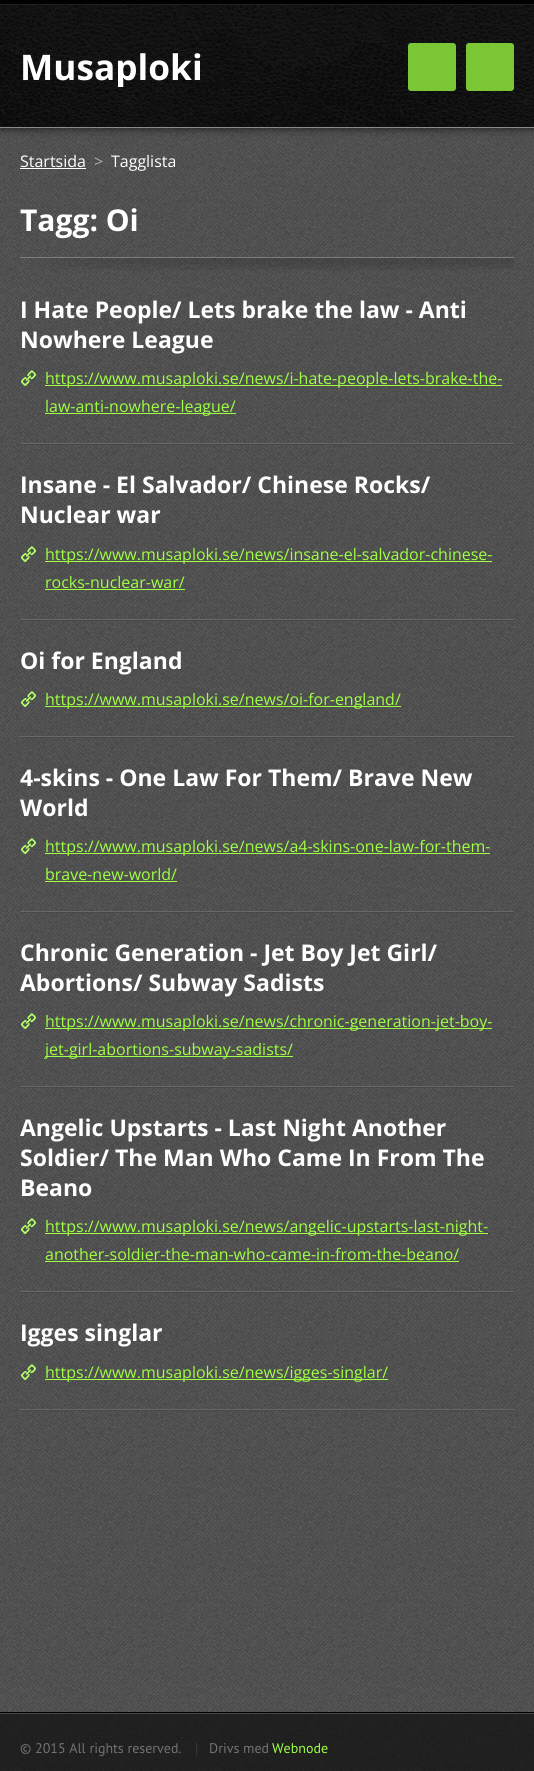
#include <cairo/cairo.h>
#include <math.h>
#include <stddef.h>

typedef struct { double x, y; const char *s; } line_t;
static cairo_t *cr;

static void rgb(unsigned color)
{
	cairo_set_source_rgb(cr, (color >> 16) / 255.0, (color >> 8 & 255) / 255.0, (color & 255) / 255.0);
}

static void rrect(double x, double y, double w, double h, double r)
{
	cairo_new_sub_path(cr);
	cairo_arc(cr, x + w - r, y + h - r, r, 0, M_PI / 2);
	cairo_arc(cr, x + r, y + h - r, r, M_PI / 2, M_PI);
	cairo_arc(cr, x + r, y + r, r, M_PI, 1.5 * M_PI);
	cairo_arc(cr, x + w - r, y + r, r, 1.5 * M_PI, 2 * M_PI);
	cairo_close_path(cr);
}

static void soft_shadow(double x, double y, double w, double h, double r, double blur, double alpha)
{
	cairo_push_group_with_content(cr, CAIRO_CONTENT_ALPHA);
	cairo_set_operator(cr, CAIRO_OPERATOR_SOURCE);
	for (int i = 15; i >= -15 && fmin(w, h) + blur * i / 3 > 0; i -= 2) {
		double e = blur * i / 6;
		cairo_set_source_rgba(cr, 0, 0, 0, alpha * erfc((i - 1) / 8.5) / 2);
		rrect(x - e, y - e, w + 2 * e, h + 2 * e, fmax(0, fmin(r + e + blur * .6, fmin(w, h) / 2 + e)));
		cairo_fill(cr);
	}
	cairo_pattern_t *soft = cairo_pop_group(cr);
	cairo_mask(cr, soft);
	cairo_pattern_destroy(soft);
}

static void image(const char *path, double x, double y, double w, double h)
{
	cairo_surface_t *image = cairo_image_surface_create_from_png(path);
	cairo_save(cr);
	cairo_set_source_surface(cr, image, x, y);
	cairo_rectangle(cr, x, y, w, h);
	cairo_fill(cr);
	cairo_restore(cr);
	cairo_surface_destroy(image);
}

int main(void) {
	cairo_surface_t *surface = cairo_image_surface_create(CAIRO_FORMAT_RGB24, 534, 1771);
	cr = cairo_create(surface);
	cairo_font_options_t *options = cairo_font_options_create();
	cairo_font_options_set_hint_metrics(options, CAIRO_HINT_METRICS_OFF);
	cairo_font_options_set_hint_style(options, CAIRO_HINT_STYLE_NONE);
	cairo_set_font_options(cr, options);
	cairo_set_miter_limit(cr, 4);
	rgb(0xffffff);
	cairo_paint(cr);
	image("img/1.png", 0, 128, 534, 1643);
	rgb(0x000000);
	cairo_rectangle(cr, 0, 0, 534, 4);
	cairo_fill(cr);
	rgb(0x303030);
	cairo_rectangle(cr, 0, 4, 534, 1);
	cairo_fill(cr);
	rgb(0x000000);
	soft_shadow(0, 5, 534, 123, 0, 5, 0.7);
	image("img/2.png", 0, 5, 534, 122);
	rgb(0x8a8a8a);
	cairo_rectangle(cr, 0, 127, 534, 1);
	cairo_fill(cr);
	rgb(0x7bc635);
	rrect(408, 43, 48, 48, 3);
	cairo_fill(cr);
	rrect(466, 43, 48, 48, 3);
	cairo_fill(cr);
	rgb(0xffffff);
	cairo_rectangle(cr, 20, 168, 66, 1);
	cairo_fill(cr);
	image("img/3.png", 20, 257, 494, 13);
	image("img/4.png", 20, 443, 494, 2);
	image("img/5.png", 21, 370, 15, 16);
	rgb(0x9eff44);
	cairo_rectangle(cr, 45, 385, 457, 1);
	cairo_fill(cr);
	cairo_rectangle(cr, 45, 413, 191, 1);
	cairo_fill(cr);
	image("img/4.png", 20, 619, 494, 2);
	image("img/6.png", 21, 546, 15, 16);
	cairo_rectangle(cr, 45, 561, 447, 1);
	cairo_fill(cr);
	cairo_rectangle(cr, 45, 589, 140, 1);
	cairo_fill(cr);
	image("img/4.png", 20, 736, 494, 2);
	image("img/7.png", 21, 691, 15, 16);
	cairo_rectangle(cr, 45, 706, 356, 1);
	cairo_fill(cr);
	image("img/4.png", 20, 911, 494, 2);
	image("img/8.png", 21, 838, 15, 16);
	cairo_rectangle(cr, 45, 853, 445, 1);
	cairo_fill(cr);
	cairo_rectangle(cr, 45, 881, 132, 1);
	cairo_fill(cr);
	image("img/4.png", 20, 1086, 494, 2);
	image("img/9.png", 21, 1013, 15, 16);
	cairo_rectangle(cr, 45, 1028, 447, 1);
	cairo_fill(cr);
	cairo_rectangle(cr, 45, 1056, 248, 1);
	cairo_fill(cr);
	image("img/4.png", 20, 1291, 494, 2);
	image("img/10.png", 21, 1218, 15, 16);
	cairo_rectangle(cr, 45, 1233, 443, 1);
	cairo_fill(cr);
	cairo_rectangle(cr, 45, 1261, 414, 1);
	cairo_fill(cr);
	image("img/4.png", 20, 1409, 494, 2);
	image("img/11.png", 21, 1364, 15, 16);
	cairo_rectangle(cr, 45, 1379, 343, 1);
	cairo_fill(cr);
	rgb(0x000000);
	cairo_rectangle(cr, 0, 1712, 534, 1);
	cairo_fill(cr);
	cairo_set_source_rgba(cr, 0, 0, 0, 0.6);
	cairo_rectangle(cr, 0, 1714, 534, 57);
	cairo_fill(cr);
	rgb(0x464646);
	cairo_rectangle(cr, 0, 1713, 534, 1);
	cairo_fill(cr);
	cairo_save(cr);
	cairo_rectangle(cr, 20, 45, 182, 42);
	cairo_clip(cr);
	cairo_select_font_face(cr, "Open Sans", CAIRO_FONT_SLANT_NORMAL, CAIRO_FONT_WEIGHT_BOLD);
	cairo_set_font_size(cr, 35.25);
	rgb(0xffffff);
	cairo_move_to(cr, 20, 80);
	cairo_show_text(cr, "Musaploki");
	cairo_restore(cr);
	cairo_select_font_face(cr, "Open Sans", CAIRO_FONT_SLANT_NORMAL, CAIRO_FONT_WEIGHT_NORMAL);
	cairo_set_font_size(cr, 16);
	rgb(0xffffff);
	cairo_move_to(cr, 20, 167);
	cairo_show_text(cr, "Startsida");
	rgb(0xb3b3b3);
	cairo_move_to(cr, 94, 167);
	cairo_show_text(cr, ">");
	rgb(0xffffff);
	cairo_move_to(cr, 111, 167);
	cairo_show_text(cr, "Tagglista");
	cairo_select_font_face(cr, "Open Sans", CAIRO_FONT_SLANT_NORMAL, CAIRO_FONT_WEIGHT_BOLD);
	cairo_set_font_size(cr, 30);
	cairo_move_to(cr, 20, 231);
	cairo_show_text(cr, "Tagg: Oi");
	cairo_set_font_size(cr, 23);
	cairo_move_to(cr, 20, 318);
	cairo_show_text(cr, "I Hate People/ Lets brake the law - Anti");
	cairo_move_to(cr, 20, 348);
	cairo_show_text(cr, "Nowhere League");
	cairo_select_font_face(cr, "Open Sans", CAIRO_FONT_SLANT_NORMAL, CAIRO_FONT_WEIGHT_NORMAL);
	cairo_set_font_size(cr, 16);
	rgb(0x9eff44);
	cairo_move_to(cr, 45, 384);
	cairo_show_text(cr, "https://www.musaploki.se/news/i-hate-people-lets-brake-the-");
	cairo_move_to(cr, 45, 412);
	cairo_show_text(cr, "law-anti-nowhere-league/");
	cairo_select_font_face(cr, "Open Sans", CAIRO_FONT_SLANT_NORMAL, CAIRO_FONT_WEIGHT_BOLD);
	cairo_set_font_size(cr, 23);
	rgb(0xffffff);
	cairo_move_to(cr, 20, 493);
	cairo_show_text(cr, "Insane - El Salvador/ Chinese Rocks/");
	cairo_move_to(cr, 20, 523);
	cairo_show_text(cr, "Nuclear war");
	cairo_select_font_face(cr, "Open Sans", CAIRO_FONT_SLANT_NORMAL, CAIRO_FONT_WEIGHT_NORMAL);
	cairo_set_font_size(cr, 16);
	rgb(0x9eff44);
	cairo_move_to(cr, 45, 560);
	cairo_show_text(cr, "https://www.musaploki.se/news/insane-el-salvador-chinese-");
	cairo_move_to(cr, 45, 588);
	cairo_show_text(cr, "rocks-nuclear-war/");
	cairo_select_font_face(cr, "Open Sans", CAIRO_FONT_SLANT_NORMAL, CAIRO_FONT_WEIGHT_BOLD);
	cairo_set_font_size(cr, 23);
	rgb(0xffffff);
	cairo_move_to(cr, 20, 669);
	cairo_show_text(cr, "Oi for England");
	cairo_select_font_face(cr, "Open Sans", CAIRO_FONT_SLANT_NORMAL, CAIRO_FONT_WEIGHT_NORMAL);
	cairo_set_font_size(cr, 16);
	rgb(0x9eff44);
	cairo_move_to(cr, 45, 705);
	cairo_show_text(cr, "https://www.musaploki.se/news/oi-for-england/");
	cairo_select_font_face(cr, "Open Sans", CAIRO_FONT_SLANT_NORMAL, CAIRO_FONT_WEIGHT_BOLD);
	cairo_set_font_size(cr, 23);
	rgb(0xffffff);
	cairo_move_to(cr, 20, 786);
	cairo_show_text(cr, "4-skins - One Law For Them/ Brave New");
	cairo_move_to(cr, 20, 816);
	cairo_show_text(cr, "World");
	cairo_select_font_face(cr, "Open Sans", CAIRO_FONT_SLANT_NORMAL, CAIRO_FONT_WEIGHT_NORMAL);
	cairo_set_font_size(cr, 16);
	rgb(0x9eff44);
	cairo_move_to(cr, 45, 852);
	cairo_show_text(cr, "https://www.musaploki.se/news/a4-skins-one-law-for-them-");
	cairo_move_to(cr, 45, 880);
	cairo_show_text(cr, "brave-new-world/");
	cairo_select_font_face(cr, "Open Sans", CAIRO_FONT_SLANT_NORMAL, CAIRO_FONT_WEIGHT_BOLD);
	cairo_set_font_size(cr, 23);
	rgb(0xffffff);
	cairo_move_to(cr, 20, 961);
	cairo_show_text(cr, "Chronic Generation - Jet Boy Jet Girl/");
	cairo_move_to(cr, 20, 991);
	cairo_show_text(cr, "Abortions/ Subway Sadists");
	cairo_select_font_face(cr, "Open Sans", CAIRO_FONT_SLANT_NORMAL, CAIRO_FONT_WEIGHT_NORMAL);
	cairo_set_font_size(cr, 16);
	rgb(0x9eff44);
	cairo_move_to(cr, 45, 1027);
	cairo_show_text(cr, "https://www.musaploki.se/news/chronic-generation-jet-boy-");
	cairo_move_to(cr, 45, 1055);
	cairo_show_text(cr, "jet-girl-abortions-subway-sadists/");
	cairo_select_font_face(cr, "Open Sans", CAIRO_FONT_SLANT_NORMAL, CAIRO_FONT_WEIGHT_BOLD);
	cairo_set_font_size(cr, 23);
	rgb(0xffffff);
	{
		static const line_t items[] = {
			{20, 1136, "Angelic Upstarts - Last Night Another"},
			{20, 1166, "Soldier/ The Man Who Came In From The"},
			{20, 1196, "Beano"},
		};
		for (size_t i = 0; i < sizeof items / sizeof *items; i++) {
			cairo_move_to(cr, items[i].x, items[i].y);
			cairo_show_text(cr, items[i].s);
		}
	}
	cairo_select_font_face(cr, "Open Sans", CAIRO_FONT_SLANT_NORMAL, CAIRO_FONT_WEIGHT_NORMAL);
	cairo_set_font_size(cr, 16);
	rgb(0x9eff44);
	cairo_move_to(cr, 45, 1232);
	cairo_show_text(cr, "https://www.musaploki.se/news/angelic-upstarts-last-night-");
	cairo_move_to(cr, 45, 1260);
	cairo_show_text(cr, "another-soldier-the-man-who-came-in-from-the-beano/");
	cairo_select_font_face(cr, "Open Sans", CAIRO_FONT_SLANT_NORMAL, CAIRO_FONT_WEIGHT_BOLD);
	cairo_set_font_size(cr, 23);
	rgb(0xffffff);
	cairo_move_to(cr, 20, 1341);
	cairo_show_text(cr, "Igges singlar");
	cairo_select_font_face(cr, "Open Sans", CAIRO_FONT_SLANT_NORMAL, CAIRO_FONT_WEIGHT_NORMAL);
	cairo_set_font_size(cr, 16);
	rgb(0x9eff44);
	cairo_move_to(cr, 45, 1378);
	cairo_show_text(cr, "https://www.musaploki.se/news/igges-singlar/");
	cairo_select_font_face(cr, "PT Sans", CAIRO_FONT_SLANT_NORMAL, CAIRO_FONT_WEIGHT_NORMAL);
	cairo_set_font_size(cr, 14);
	rgb(0x727272);
	cairo_move_to(cr, 20, 1753);
	cairo_show_text(cr, "© 2015 All rights reserved.");
	rgb(0x3c3c3c);
	cairo_move_to(cr, 195, 1753);
	cairo_show_text(cr, "|");
	rgb(0x727272);
	cairo_move_to(cr, 209, 1753);
	cairo_show_text(cr, "Drivs med");
	rgb(0x9eff44);
	cairo_move_to(cr, 272, 1753);
	cairo_show_text(cr, "Webnode");
	cairo_surface_write_to_png(surface, "page.png");
	cairo_font_options_destroy(options);
	cairo_destroy(cr);
	cairo_surface_destroy(surface);
	return 0;
}
